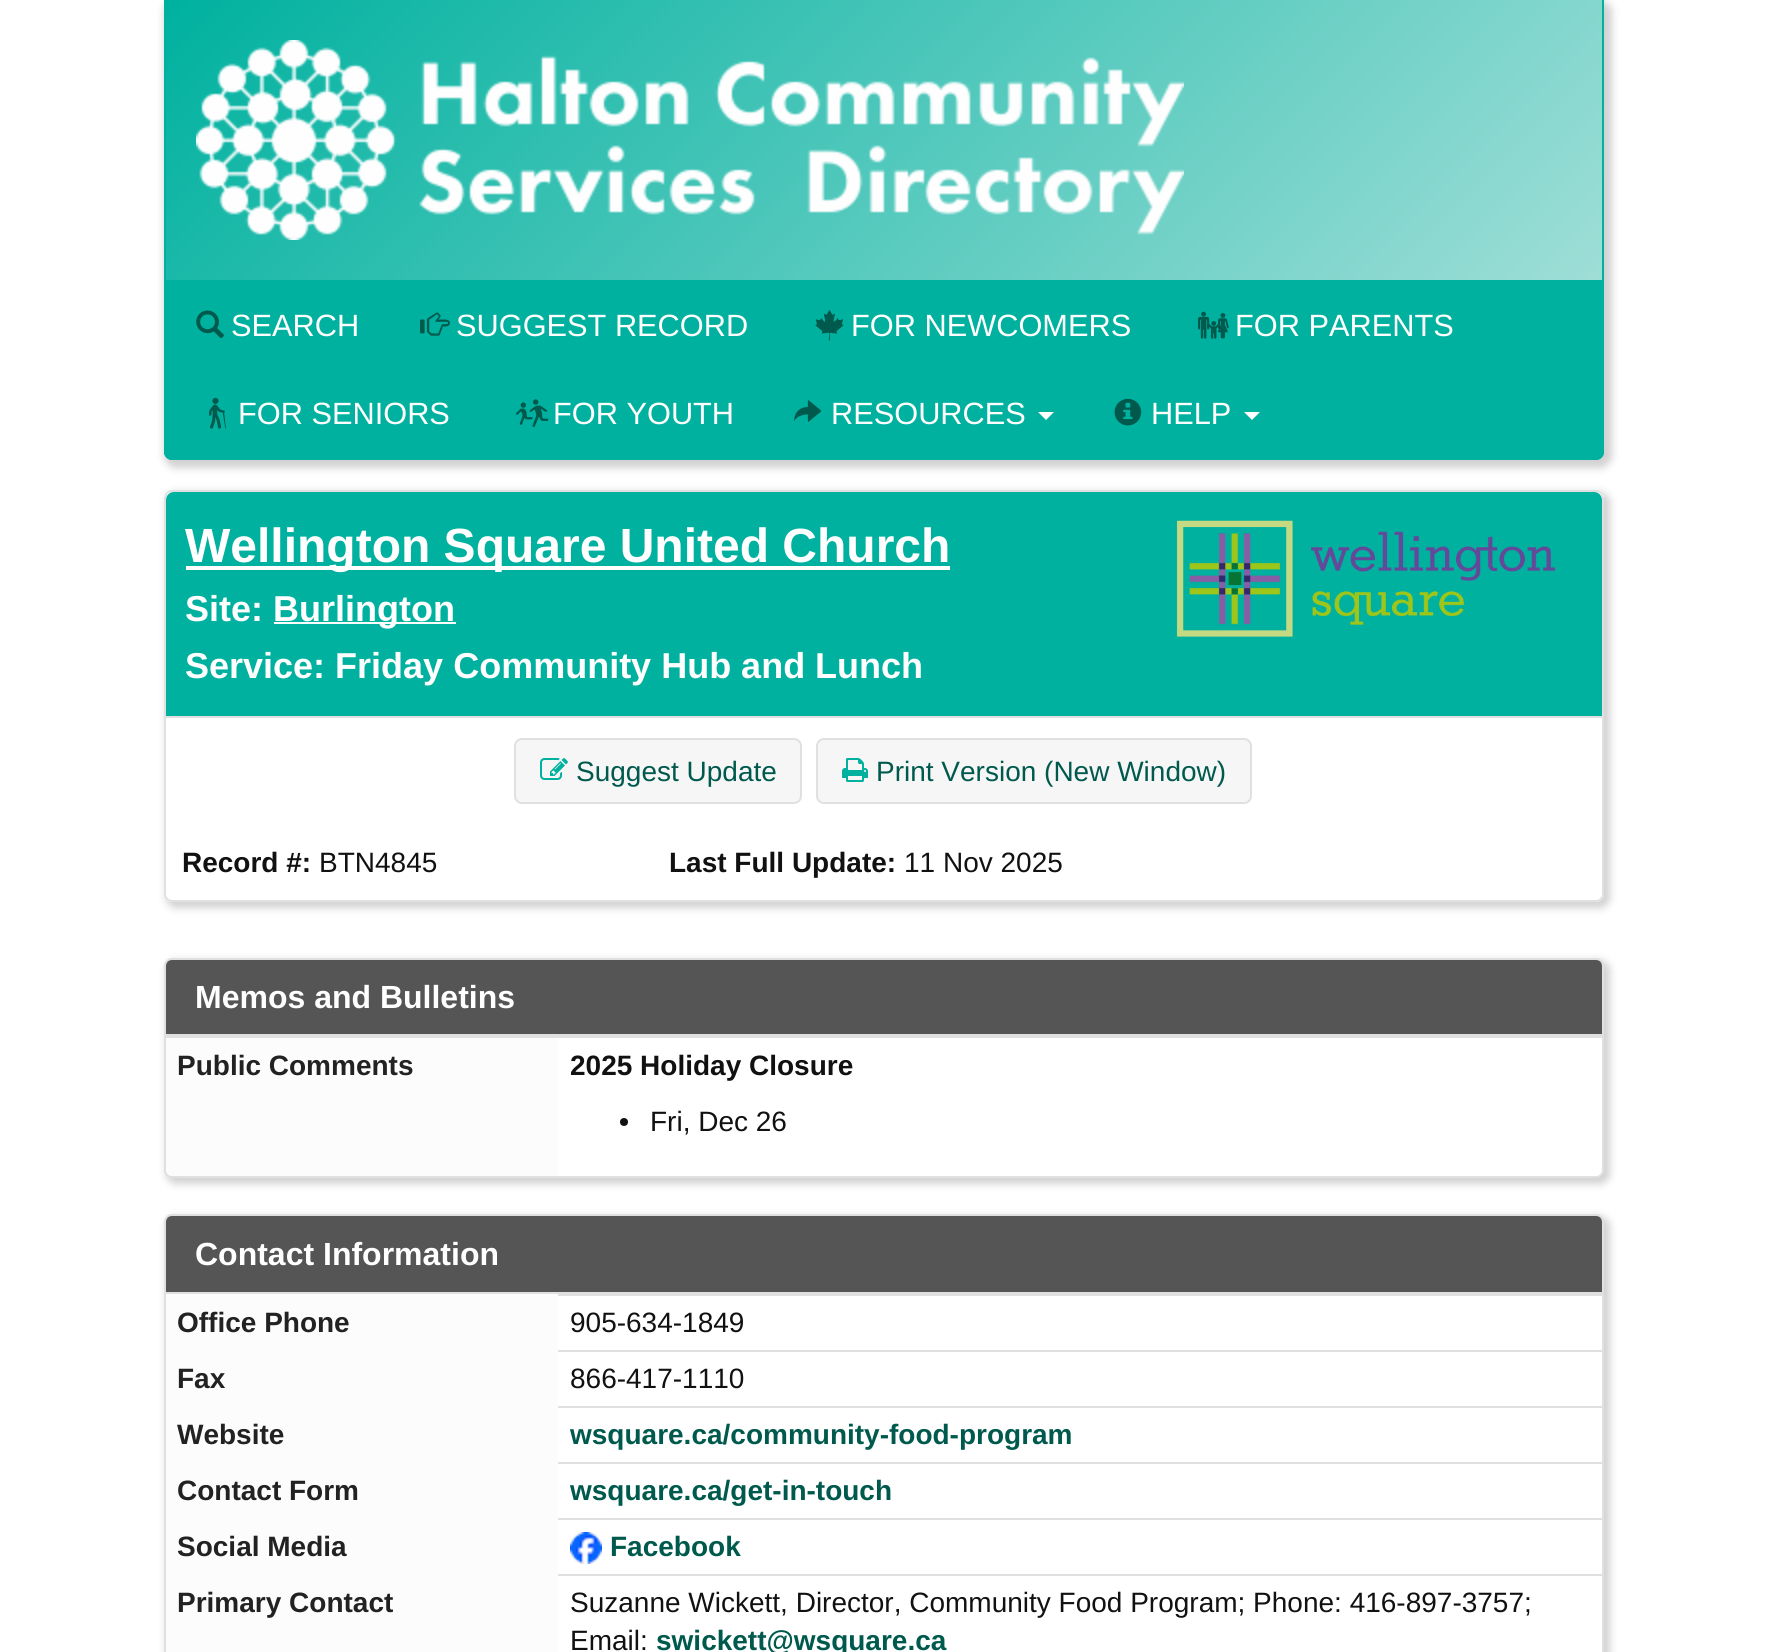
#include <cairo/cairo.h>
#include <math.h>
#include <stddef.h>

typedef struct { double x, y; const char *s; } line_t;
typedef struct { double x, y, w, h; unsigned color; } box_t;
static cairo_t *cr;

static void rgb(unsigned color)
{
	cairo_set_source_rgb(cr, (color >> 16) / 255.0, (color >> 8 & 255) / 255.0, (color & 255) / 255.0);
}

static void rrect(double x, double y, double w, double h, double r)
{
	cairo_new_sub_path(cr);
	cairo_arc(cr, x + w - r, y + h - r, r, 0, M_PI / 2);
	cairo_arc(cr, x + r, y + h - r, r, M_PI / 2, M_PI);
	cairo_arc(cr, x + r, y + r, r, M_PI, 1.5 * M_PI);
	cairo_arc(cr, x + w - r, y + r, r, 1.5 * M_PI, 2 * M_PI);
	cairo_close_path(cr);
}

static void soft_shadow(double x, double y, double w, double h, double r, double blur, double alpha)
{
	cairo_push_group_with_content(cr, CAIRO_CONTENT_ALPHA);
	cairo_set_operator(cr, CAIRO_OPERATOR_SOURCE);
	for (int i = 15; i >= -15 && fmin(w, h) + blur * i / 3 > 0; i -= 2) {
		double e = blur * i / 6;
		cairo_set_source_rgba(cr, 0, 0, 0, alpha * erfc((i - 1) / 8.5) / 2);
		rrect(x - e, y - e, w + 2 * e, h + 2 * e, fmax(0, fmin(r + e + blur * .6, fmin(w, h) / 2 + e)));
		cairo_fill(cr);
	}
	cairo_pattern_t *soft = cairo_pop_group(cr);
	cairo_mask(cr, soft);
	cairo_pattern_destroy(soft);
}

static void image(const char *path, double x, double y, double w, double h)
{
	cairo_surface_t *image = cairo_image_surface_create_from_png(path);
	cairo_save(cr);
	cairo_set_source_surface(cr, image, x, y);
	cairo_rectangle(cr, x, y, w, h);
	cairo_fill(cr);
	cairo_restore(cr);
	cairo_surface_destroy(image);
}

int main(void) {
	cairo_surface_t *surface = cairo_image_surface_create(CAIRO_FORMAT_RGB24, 1766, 1652);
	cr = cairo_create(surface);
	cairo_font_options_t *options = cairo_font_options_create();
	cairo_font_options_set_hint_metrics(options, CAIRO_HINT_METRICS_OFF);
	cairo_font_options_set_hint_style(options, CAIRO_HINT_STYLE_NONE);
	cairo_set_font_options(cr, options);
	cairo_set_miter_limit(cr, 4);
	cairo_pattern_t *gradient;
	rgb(0xffffff);
	cairo_paint(cr);
	rgb(0x666666);
	soft_shadow(164, 0, 1448, 468, 12, 4, 0.3);
	rgb(0x00b19f);
	cairo_new_path(cr);
	cairo_move_to(cr, 164, 0);
	cairo_line_to(cr, 1604, 0);
	cairo_line_to(cr, 1604, 452);
	cairo_curve_to(cr, 1604, 456.5, 1600.5, 460, 1596, 460);
	cairo_line_to(cr, 172, 460);
	cairo_curve_to(cr, 167.5, 460, 164, 456.5, 164, 452);
	cairo_close_path(cr);
	cairo_fill(cr);
	cairo_set_fill_rule(cr, CAIRO_FILL_RULE_EVEN_ODD);
	cairo_new_path(cr);
	cairo_move_to(cr, 164, 0);
	cairo_line_to(cr, 1604, 0);
	cairo_line_to(cr, 1604, 452);
	cairo_curve_to(cr, 1604, 456, 1600, 460, 1596, 460);
	cairo_line_to(cr, 172, 460);
	cairo_curve_to(cr, 168, 460, 164, 456, 164, 452);
	cairo_close_path(cr);
	cairo_move_to(cr, 166, 0);
	cairo_line_to(cr, 1602, 0);
	cairo_line_to(cr, 1602, 452);
	cairo_curve_to(cr, 1602, 455, 1599, 458, 1596, 458);
	cairo_line_to(cr, 172, 458);
	cairo_curve_to(cr, 169, 458, 166, 455, 166, 452);
	cairo_close_path(cr);
	cairo_fill(cr);
	gradient = cairo_pattern_create_linear(455, -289, 1313, 569);
	cairo_pattern_add_color_stop_rgba(gradient, 0, 0, 0.694, 0.624, 1);
	cairo_pattern_add_color_stop_rgba(gradient, 1, 0.62, 0.871, 0.843, 1);
	cairo_set_source(cr, gradient);
	cairo_pattern_destroy(gradient);
	cairo_rectangle(cr, 166, 0, 1436, 280);
	cairo_fill(cr);
	image("img/1.png", 196, 40, 988, 200);
	image("img/2.png", 196, 310, 28, 29);
	image("img/3.png", 420, 312, 30, 24);
	image("img/4.png", 815, 310, 29, 31);
	image("img/5.png", 1198, 311, 31, 28);
	image("img/6.png", 209, 397, 17, 32);
	image("img/7.png", 516, 399, 33, 28);
	image("img/8.png", 794, 400, 28, 22);
	rgb(0xffffff);
	cairo_set_fill_rule(cr, CAIRO_FILL_RULE_WINDING);
	cairo_new_path(cr);
	cairo_move_to(cr, 1038, 412);
	cairo_line_to(cr, 1054, 412);
	cairo_line_to(cr, 1046, 420);
	cairo_close_path(cr);
	cairo_fill(cr);
	image("img/9.png", 1114, 398, 28, 28);
	cairo_new_path(cr);
	cairo_move_to(cr, 1244, 412);
	cairo_line_to(cr, 1260, 412);
	cairo_line_to(cr, 1252, 420);
	cairo_close_path(cr);
	cairo_fill(cr);
	cairo_save(cr);
	cairo_set_fill_rule(cr, CAIRO_FILL_RULE_EVEN_ODD);
	cairo_new_path(cr);
	cairo_move_to(cr, 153, 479);
	cairo_line_to(cr, 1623, 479);
	cairo_line_to(cr, 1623, 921);
	cairo_line_to(cr, 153, 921);
	cairo_close_path(cr);
	cairo_move_to(cr, 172, 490);
	cairo_line_to(cr, 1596, 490);
	cairo_curve_to(cr, 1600.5, 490, 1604, 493.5, 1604, 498);
	cairo_line_to(cr, 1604, 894);
	cairo_curve_to(cr, 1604, 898.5, 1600.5, 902, 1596, 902);
	cairo_line_to(cr, 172, 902);
	cairo_curve_to(cr, 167.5, 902, 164, 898.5, 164, 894);
	cairo_line_to(cr, 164, 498);
	cairo_curve_to(cr, 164, 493.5, 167.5, 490, 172, 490);
	cairo_close_path(cr);
	cairo_clip(cr);
	rgb(0x666666);
	soft_shadow(166, 492, 1444, 416, 10, 4, 0.3);
	cairo_restore(cr);
	rrect(165, 491, 1438, 410, 7);
	rgb(0xe0e0e0);
	cairo_stroke(cr);
	rgb(0x00b19f);
	cairo_new_path(cr);
	cairo_move_to(cr, 174, 492);
	cairo_line_to(cr, 1594, 492);
	cairo_curve_to(cr, 1598.5, 492, 1602, 495.5, 1602, 500);
	cairo_line_to(cr, 1602, 718);
	cairo_line_to(cr, 166, 718);
	cairo_line_to(cr, 166, 500);
	cairo_curve_to(cr, 166, 495.5, 169.5, 492, 174, 492);
	cairo_close_path(cr);
	cairo_fill(cr);
	{
		static const box_t items[] = {
			{166, 716, 1436, 2, 0xe0e0e0},
			{186, 566, 764, 4, 0xffffff},
			{274, 622, 182, 2, 0xffffff},
		};
		for (size_t i = 0; i < sizeof items / sizeof *items; i++) {
			rgb(items[i].color);
			cairo_rectangle(cr, items[i].x, items[i].y, items[i].w, items[i].h);
			cairo_fill(cr);
		}
	}
	image("img/10.png", 1176, 520, 379, 117);
	rgb(0xf6f6f6);
	rrect(515, 739, 286, 64, 7);
	cairo_fill_preserve(cr);
	rgb(0xe0e0e0);
	cairo_stroke(cr);
	image("img/11.png", 540, 758, 28, 22);
	rgb(0xf6f6f6);
	rrect(817, 739, 434, 64, 7);
	cairo_fill_preserve(cr);
	rgb(0xe0e0e0);
	cairo_stroke(cr);
	image("img/12.png", 842, 758, 26, 24);
	rgb(0x666666);
	soft_shadow(166, 960, 1444, 224, 10, 4, 0.3);
	rgb(0xffffff);
	rrect(165, 959, 1438, 218, 7);
	cairo_fill_preserve(cr);
	rgb(0xe0e0e0);
	cairo_stroke(cr);
	rgb(0x555555);
	cairo_new_path(cr);
	cairo_move_to(cr, 172, 960);
	cairo_line_to(cr, 1596, 960);
	cairo_curve_to(cr, 1599.5, 960, 1602, 962.5, 1602, 966);
	cairo_line_to(cr, 1602, 1036);
	cairo_line_to(cr, 166, 1036);
	cairo_line_to(cr, 166, 966);
	cairo_curve_to(cr, 166, 962.5, 168.5, 960, 172, 960);
	cairo_close_path(cr);
	cairo_fill(cr);
	rgb(0xe0e0e0);
	cairo_rectangle(cr, 166, 1034, 1436, 4);
	cairo_fill(cr);
	cairo_rectangle(cr, 556, 1036, 2, 142);
	cairo_fill(cr);
	rgb(0xfcfcfc);
	cairo_new_path(cr);
	cairo_move_to(cr, 166, 1038);
	cairo_line_to(cr, 558, 1038);
	cairo_line_to(cr, 558, 1176);
	cairo_line_to(cr, 174, 1176);
	cairo_curve_to(cr, 169.5, 1176, 166, 1172.5, 166, 1168);
	cairo_close_path(cr);
	cairo_fill(cr);
	rgb(0x111111);
	cairo_arc(cr, 624, 1122, 4, 0, 2 * M_PI);
	cairo_fill(cr);
	rgb(0x666666);
	soft_shadow(166, 1216, 1444, 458, 10, 4, 0.3);
	rgb(0xffffff);
	rrect(165, 1215, 1438, 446, 7);
	cairo_fill_preserve(cr);
	rgb(0xe0e0e0);
	cairo_stroke(cr);
	rgb(0x555555);
	cairo_new_path(cr);
	cairo_move_to(cr, 172, 1216);
	cairo_line_to(cr, 1596, 1216);
	cairo_curve_to(cr, 1599.5, 1216, 1602, 1218.5, 1602, 1222);
	cairo_line_to(cr, 1602, 1294);
	cairo_line_to(cr, 166, 1294);
	cairo_line_to(cr, 166, 1222);
	cairo_curve_to(cr, 166, 1218.5, 168.5, 1216, 172, 1216);
	cairo_close_path(cr);
	cairo_fill(cr);
	{
		static const box_t items[] = {
			{166, 1292, 1436, 2, 0xe0e0e0},
			{558, 1294, 1044, 2, 0xe0e0e0},
			{556, 1350, 1046, 2, 0xe0e0e0},
			{556, 1406, 1046, 2, 0xe0e0e0},
			{556, 1462, 1046, 2, 0xe0e0e0},
			{556, 1518, 1046, 2, 0xe0e0e0},
			{556, 1574, 1046, 2, 0xe0e0e0},
			{166, 1294, 392, 358, 0xfcfcfc},
		};
		for (size_t i = 0; i < sizeof items / sizeof *items; i++) {
			rgb(items[i].color);
			cairo_rectangle(cr, items[i].x, items[i].y, items[i].w, items[i].h);
			cairo_fill(cr);
		}
	}
	image("img/13.png", 570, 1532, 32, 32);
	cairo_select_font_face(cr, "Liberation Sans", CAIRO_FONT_SLANT_NORMAL, CAIRO_FONT_WEIGHT_NORMAL);
	cairo_set_font_size(cr, 30.75);
	rgb(0xffffff);
	{
		static const line_t items[] = {
			{231, 336, "SEARCH"},
			{456, 336, "SUGGEST RECORD"},
			{851, 336, "FOR NEWCOMERS"},
			{1235, 336, "FOR PARENTS"},
			{238, 424, "FOR SENIORS"},
			{553, 424, "FOR YOUTH"},
			{831, 424, "RESOURCES"},
			{1151, 424, "HELP"},
		};
		for (size_t i = 0; i < sizeof items / sizeof *items; i++) {
			cairo_move_to(cr, items[i].x, items[i].y);
			cairo_show_text(cr, items[i].s);
		}
	}
	cairo_select_font_face(cr, "Liberation Sans", CAIRO_FONT_SLANT_NORMAL, CAIRO_FONT_WEIGHT_BOLD);
	cairo_set_font_size(cr, 48);
	cairo_move_to(cr, 185, 562);
	cairo_show_text(cr, "Wellington Square United Church");
	cairo_set_font_size(cr, 36);
	{
		static const line_t items[] = {
			{185, 621, "Site:"},
			{273, 621, "Burlington"},
			{185, 678, "Service: Friday Community Hub and Lunch"},
		};
		for (size_t i = 0; i < sizeof items / sizeof *items; i++) {
			cairo_move_to(cr, items[i].x, items[i].y);
			cairo_show_text(cr, items[i].s);
		}
	}
	cairo_select_font_face(cr, "Liberation Sans", CAIRO_FONT_SLANT_NORMAL, CAIRO_FONT_WEIGHT_NORMAL);
	cairo_set_font_size(cr, 28);
	rgb(0x00594d);
	cairo_move_to(cr, 576, 781);
	cairo_show_text(cr, "Suggest Update");
	cairo_move_to(cr, 876, 781);
	cairo_show_text(cr, "Print Version (New Window)");
	cairo_select_font_face(cr, "Liberation Sans", CAIRO_FONT_SLANT_NORMAL, CAIRO_FONT_WEIGHT_BOLD);
	rgb(0x111111);
	cairo_move_to(cr, 182, 872);
	cairo_show_text(cr, "Record #:");
	cairo_select_font_face(cr, "Liberation Sans", CAIRO_FONT_SLANT_NORMAL, CAIRO_FONT_WEIGHT_NORMAL);
	cairo_move_to(cr, 319, 872);
	cairo_show_text(cr, "BTN4845");
	cairo_select_font_face(cr, "Liberation Sans", CAIRO_FONT_SLANT_NORMAL, CAIRO_FONT_WEIGHT_BOLD);
	cairo_move_to(cr, 669, 872);
	cairo_show_text(cr, "Last Full Update:");
	cairo_select_font_face(cr, "Liberation Sans", CAIRO_FONT_SLANT_NORMAL, CAIRO_FONT_WEIGHT_NORMAL);
	cairo_move_to(cr, 904, 872);
	cairo_show_text(cr, "11 Nov 2025");
	cairo_select_font_face(cr, "Liberation Sans", CAIRO_FONT_SLANT_NORMAL, CAIRO_FONT_WEIGHT_BOLD);
	cairo_set_font_size(cr, 32);
	rgb(0xffffff);
	cairo_move_to(cr, 195, 1008);
	cairo_show_text(cr, "Memos and Bulletins");
	cairo_set_font_size(cr, 28);
	rgb(0x222222);
	cairo_move_to(cr, 177, 1075);
	cairo_show_text(cr, "Public Comments");
	rgb(0x111111);
	cairo_move_to(cr, 570, 1075);
	cairo_show_text(cr, "2025 Holiday Closure");
	cairo_select_font_face(cr, "Liberation Sans", CAIRO_FONT_SLANT_NORMAL, CAIRO_FONT_WEIGHT_NORMAL);
	cairo_move_to(cr, 650, 1131);
	cairo_show_text(cr, "Fri, Dec 26");
	cairo_select_font_face(cr, "Liberation Sans", CAIRO_FONT_SLANT_NORMAL, CAIRO_FONT_WEIGHT_BOLD);
	cairo_set_font_size(cr, 32);
	rgb(0xffffff);
	cairo_move_to(cr, 195, 1265);
	cairo_show_text(cr, "Contact Information");
	cairo_set_font_size(cr, 28);
	rgb(0x222222);
	cairo_move_to(cr, 177, 1332);
	cairo_show_text(cr, "Office Phone");
	cairo_select_font_face(cr, "Liberation Sans", CAIRO_FONT_SLANT_NORMAL, CAIRO_FONT_WEIGHT_NORMAL);
	rgb(0x111111);
	cairo_move_to(cr, 570, 1332);
	cairo_show_text(cr, "905-634-1849");
	cairo_select_font_face(cr, "Liberation Sans", CAIRO_FONT_SLANT_NORMAL, CAIRO_FONT_WEIGHT_BOLD);
	rgb(0x222222);
	cairo_move_to(cr, 177, 1388);
	cairo_show_text(cr, "Fax");
	cairo_select_font_face(cr, "Liberation Sans", CAIRO_FONT_SLANT_NORMAL, CAIRO_FONT_WEIGHT_NORMAL);
	rgb(0x111111);
	cairo_move_to(cr, 570, 1388);
	cairo_show_text(cr, "866-417-1110");
	cairo_select_font_face(cr, "Liberation Sans", CAIRO_FONT_SLANT_NORMAL, CAIRO_FONT_WEIGHT_BOLD);
	rgb(0x222222);
	cairo_move_to(cr, 177, 1444);
	cairo_show_text(cr, "Website");
	rgb(0x00594d);
	cairo_move_to(cr, 570, 1444);
	cairo_show_text(cr, "wsquare.ca/community-food-program");
	rgb(0x222222);
	cairo_move_to(cr, 177, 1500);
	cairo_show_text(cr, "Contact Form");
	rgb(0x00594d);
	cairo_move_to(cr, 570, 1500);
	cairo_show_text(cr, "wsquare.ca/get-in-touch");
	rgb(0x222222);
	cairo_move_to(cr, 177, 1556);
	cairo_show_text(cr, "Social Media");
	rgb(0x00594d);
	cairo_move_to(cr, 610, 1556);
	cairo_show_text(cr, "Facebook");
	rgb(0x222222);
	cairo_move_to(cr, 177, 1612);
	cairo_show_text(cr, "Primary Contact");
	cairo_select_font_face(cr, "Liberation Sans", CAIRO_FONT_SLANT_NORMAL, CAIRO_FONT_WEIGHT_NORMAL);
	rgb(0x111111);
	cairo_move_to(cr, 570, 1612);
	cairo_show_text(cr, "Suzanne Wickett, Director, Community Food Program; Phone: 416-897-3757;");
	cairo_move_to(cr, 570, 1650);
	cairo_show_text(cr, "Email:");
	cairo_select_font_face(cr, "Liberation Sans", CAIRO_FONT_SLANT_NORMAL, CAIRO_FONT_WEIGHT_BOLD);
	rgb(0x00594d);
	cairo_move_to(cr, 656, 1650);
	cairo_show_text(cr, "swickett@wsquare.ca");
	cairo_surface_write_to_png(surface, "page.png");
	cairo_font_options_destroy(options);
	cairo_destroy(cr);
	cairo_surface_destroy(surface);
	return 0;
}
